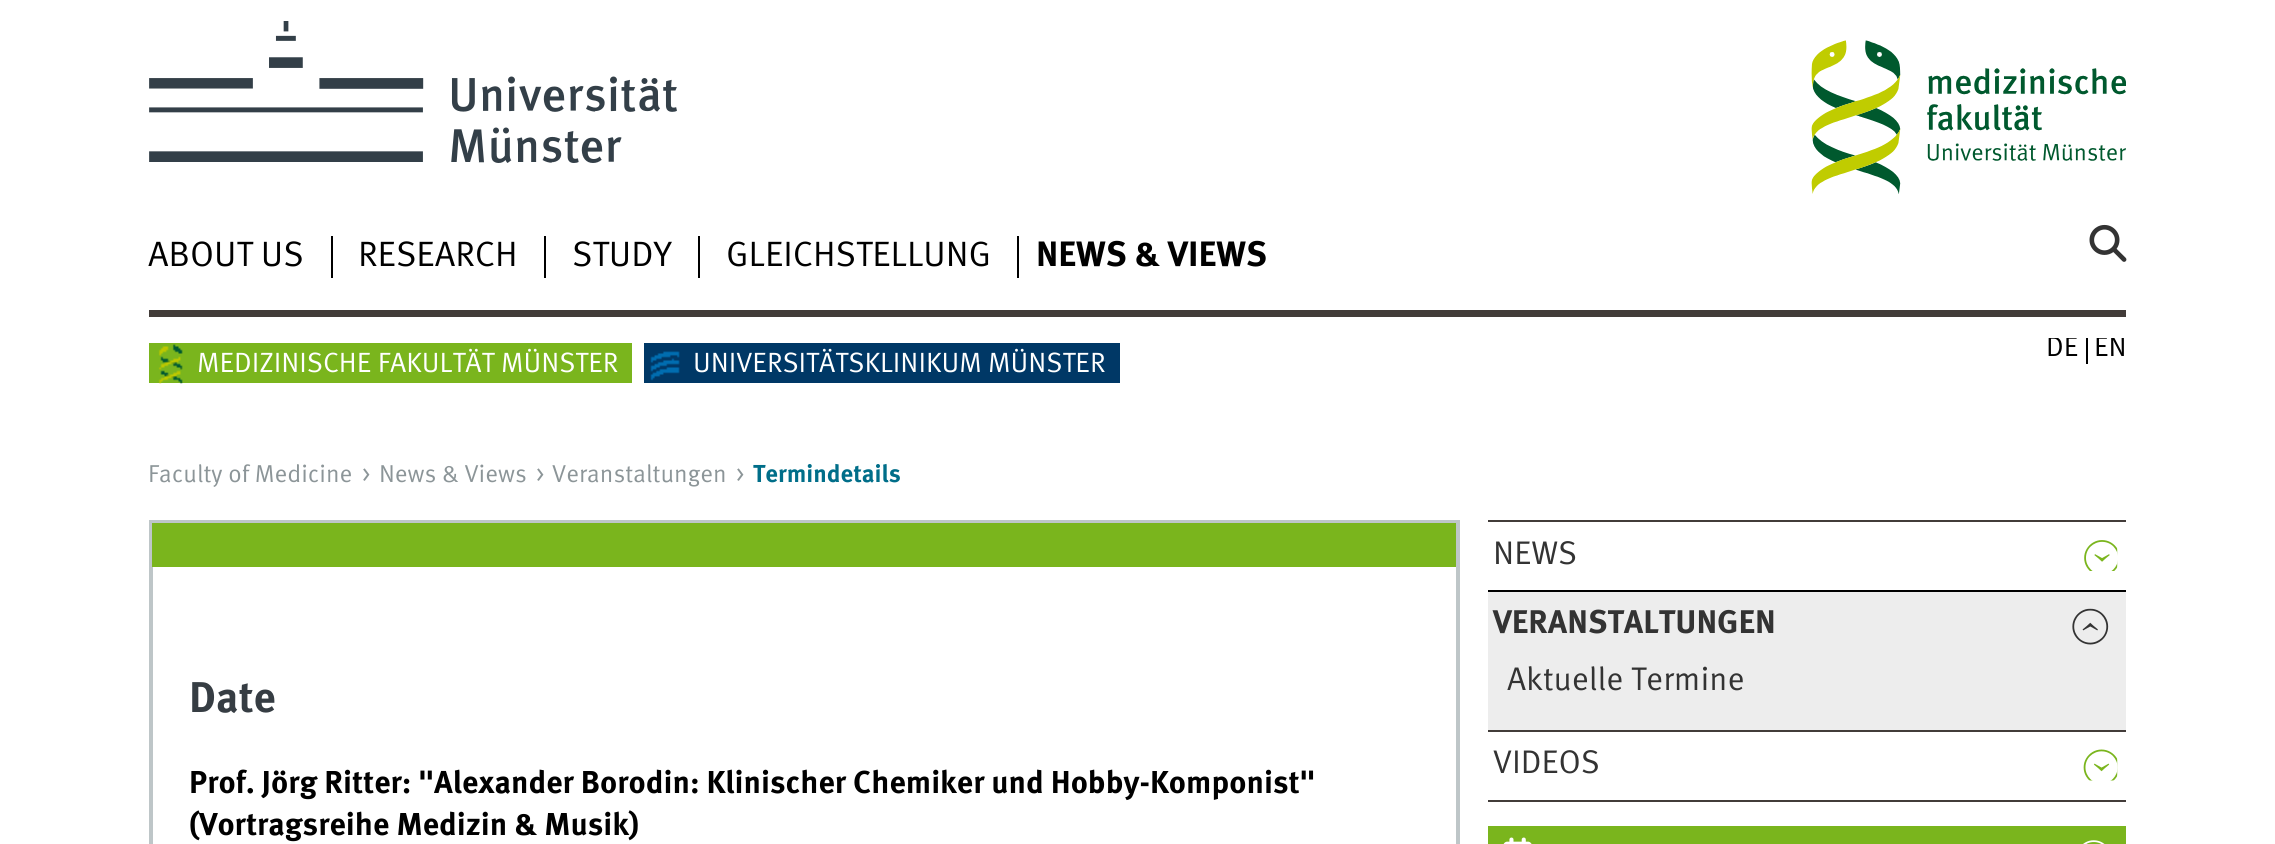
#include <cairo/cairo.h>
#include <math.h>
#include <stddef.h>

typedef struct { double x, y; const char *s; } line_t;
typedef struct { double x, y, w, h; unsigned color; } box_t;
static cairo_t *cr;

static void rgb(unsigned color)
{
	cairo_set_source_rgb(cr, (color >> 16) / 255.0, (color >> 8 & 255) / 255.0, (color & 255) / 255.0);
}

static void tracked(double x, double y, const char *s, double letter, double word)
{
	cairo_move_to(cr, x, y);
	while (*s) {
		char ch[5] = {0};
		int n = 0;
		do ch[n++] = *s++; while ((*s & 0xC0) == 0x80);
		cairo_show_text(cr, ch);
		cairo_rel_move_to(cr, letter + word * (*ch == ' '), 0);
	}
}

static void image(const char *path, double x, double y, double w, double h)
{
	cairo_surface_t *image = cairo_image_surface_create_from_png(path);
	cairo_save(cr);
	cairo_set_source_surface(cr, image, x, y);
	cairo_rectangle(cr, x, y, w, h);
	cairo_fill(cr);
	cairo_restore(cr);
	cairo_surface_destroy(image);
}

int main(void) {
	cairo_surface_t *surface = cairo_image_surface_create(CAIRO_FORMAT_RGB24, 2275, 844);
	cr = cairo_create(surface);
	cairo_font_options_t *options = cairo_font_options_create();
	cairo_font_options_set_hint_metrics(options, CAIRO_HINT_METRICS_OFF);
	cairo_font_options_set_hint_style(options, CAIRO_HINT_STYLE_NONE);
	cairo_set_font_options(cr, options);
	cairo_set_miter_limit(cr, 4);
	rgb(0xffffff);
	cairo_paint(cr);
	image("img/1.png", 149, 21, 528, 142);
	image("img/2.png", 1811, 40, 315, 154);
	{
		static const box_t items[] = {
			{149, 310, 1977, 7, 0x423c39},
			{331, 236, 2, 42, 0x000000},
			{544, 236, 2, 42, 0x000000},
			{698, 236, 2, 42, 0x000000},
			{1017, 236, 2, 42, 0x000000},
		};
		for (size_t i = 0; i < sizeof items / sizeof *items; i++) {
			rgb(items[i].color);
			cairo_rectangle(cr, items[i].x, items[i].y, items[i].w, items[i].h);
			cairo_fill(cr);
		}
	}
	image("img/3.png", 2089, 224, 38, 38);
	rgb(0x7ab51d);
	cairo_rectangle(cr, 149, 343, 483, 40);
	cairo_fill(cr);
	image("img/4.png", 158, 344, 25, 40);
	rgb(0x003866);
	cairo_rectangle(cr, 644, 343, 476, 40);
	cairo_fill(cr);
	image("img/5.png", 650, 351, 30, 30);
	rgb(0x000000);
	cairo_rectangle(cr, 2086, 338, 2, 26);
	cairo_fill(cr);
	cairo_rectangle(cr, 151, 522, 1307, 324);
	rgb(0xbec6c8);
	cairo_set_line_width(cr, 4);
	cairo_stroke(cr);
	rgb(0x7ab51d);
	cairo_rectangle(cr, 152, 523, 1304, 44);
	cairo_fill(cr);
	rgb(0x423c39);
	cairo_rectangle(cr, 1488, 520, 638, 2);
	cairo_fill(cr);
	image("img/6.png", 2084, 540, 34, 31);
	rgb(0xededed);
	cairo_rectangle(cr, 1488, 592, 638, 138);
	cairo_fill(cr);
	rgb(0x000000);
	cairo_rectangle(cr, 1488, 590, 638, 2);
	cairo_fill(cr);
	image("img/7.png", 2072, 608, 37, 37);
	rgb(0x423c39);
	cairo_rectangle(cr, 1488, 730, 638, 2);
	cairo_fill(cr);
	cairo_rectangle(cr, 1488, 800, 638, 2);
	cairo_fill(cr);
	image("img/8.png", 2083, 749, 35, 32);
	rgb(0x7ab51d);
	cairo_rectangle(cr, 1488, 826, 638, 18);
	cairo_fill(cr);
	image("img/9.png", 1503, 837, 29, 7);
	image("img/10.png", 2083, 840, 22, 4);
	cairo_select_font_face(cr, "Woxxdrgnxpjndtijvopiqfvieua", CAIRO_FONT_SLANT_NORMAL, CAIRO_FONT_WEIGHT_NORMAL);
	cairo_set_font_size(cr, 35.25);
	rgb(0x000000);
	{
		static const line_t items[] = {
			{148, 266, "ABOUT US"},
			{358, 266, "RESEARCH"},
			{572, 266, "STUDY"},
			{726, 266, "GLEICHSTELLUNG"},
		};
		for (size_t i = 0; i < sizeof items / sizeof *items; i++) {
			cairo_move_to(cr, items[i].x, items[i].y);
			cairo_show_text(cr, items[i].s);
		}
	}
	cairo_select_font_face(cr, "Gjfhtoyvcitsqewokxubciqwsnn", CAIRO_FONT_SLANT_NORMAL, CAIRO_FONT_WEIGHT_BOLD);
	cairo_move_to(cr, 1036, 266);
	cairo_show_text(cr, "NEWS & VIEWS");
	cairo_select_font_face(cr, "Woxxdrgnxpjndtijvopiqfvieua", CAIRO_FONT_SLANT_NORMAL, CAIRO_FONT_WEIGHT_NORMAL);
	cairo_set_font_size(cr, 27.9);
	rgb(0xffffff);
	cairo_move_to(cr, 197, 372);
	cairo_show_text(cr, "MEDIZINISCHE FAKULTÄT MÜNSTER");
	cairo_move_to(cr, 693, 372);
	cairo_show_text(cr, "UNIVERSITÄTSKLINIKUM MÜNSTER");
	cairo_save(cr);
	cairo_rectangle(cr, 2039, 338, 87, 26);
	cairo_clip(cr);
	rgb(0x000000);
	cairo_move_to(cr, 2046, 356);
	cairo_show_text(cr, "DE");
	cairo_move_to(cr, 2094, 356);
	cairo_show_text(cr, "EN");
	cairo_restore(cr);
	cairo_set_font_size(cr, 24.5);
	rgb(0x8c9598);
	{
		static const line_t items[] = {
			{148, 482, "Faculty of Medicine"},
			{362, 482, ">"},
			{379, 482, "News & Views"},
			{536, 482, ">"},
			{552, 482, "Veranstaltungen"},
			{736, 482, ">"},
		};
		for (size_t i = 0; i < sizeof items / sizeof *items; i++) {
			cairo_move_to(cr, items[i].x, items[i].y);
			cairo_show_text(cr, items[i].s);
		}
	}
	cairo_select_font_face(cr, "Gjfhtoyvcitsqewokxubciqwsnn", CAIRO_FONT_SLANT_NORMAL, CAIRO_FONT_WEIGHT_BOLD);
	rgb(0x006e89);
	cairo_move_to(cr, 753, 482);
	cairo_show_text(cr, "Termindetails");
	cairo_set_font_size(cr, 43);
	rgb(0x363d43);
	cairo_move_to(cr, 189, 712);
	cairo_show_text(cr, "Date");
	cairo_set_font_size(cr, 31.65);
	rgb(0x000000);
	tracked(189, 793, "Prof. Jörg Ritter: \"Alexander Borodin: Klinischer Chemiker und Hobby-Komponist\"", 0, -0.25);
	cairo_move_to(cr, 189, 835);
	cairo_show_text(cr, "(Vortragsreihe Medizin & Musik)");
	cairo_select_font_face(cr, "Woxxdrgnxpjndtijvopiqfvieua", CAIRO_FONT_SLANT_NORMAL, CAIRO_FONT_WEIGHT_NORMAL);
	cairo_set_font_size(cr, 32.75);
	rgb(0x333333);
	cairo_move_to(cr, 1493, 564);
	cairo_show_text(cr, "NEWS");
	cairo_select_font_face(cr, "Gjfhtoyvcitsqewokxubciqwsnn", CAIRO_FONT_SLANT_NORMAL, CAIRO_FONT_WEIGHT_BOLD);
	cairo_move_to(cr, 1493, 633);
	cairo_show_text(cr, "VERANSTALTUNGEN");
	cairo_select_font_face(cr, "Woxxdrgnxpjndtijvopiqfvieua", CAIRO_FONT_SLANT_NORMAL, CAIRO_FONT_WEIGHT_NORMAL);
	cairo_move_to(cr, 1507, 690);
	cairo_show_text(cr, "Aktuelle Termine");
	cairo_move_to(cr, 1493, 773);
	cairo_show_text(cr, "VIDEOS");
	cairo_surface_write_to_png(surface, "page.png");
	cairo_font_options_destroy(options);
	cairo_destroy(cr);
	cairo_surface_destroy(surface);
	return 0;
}
